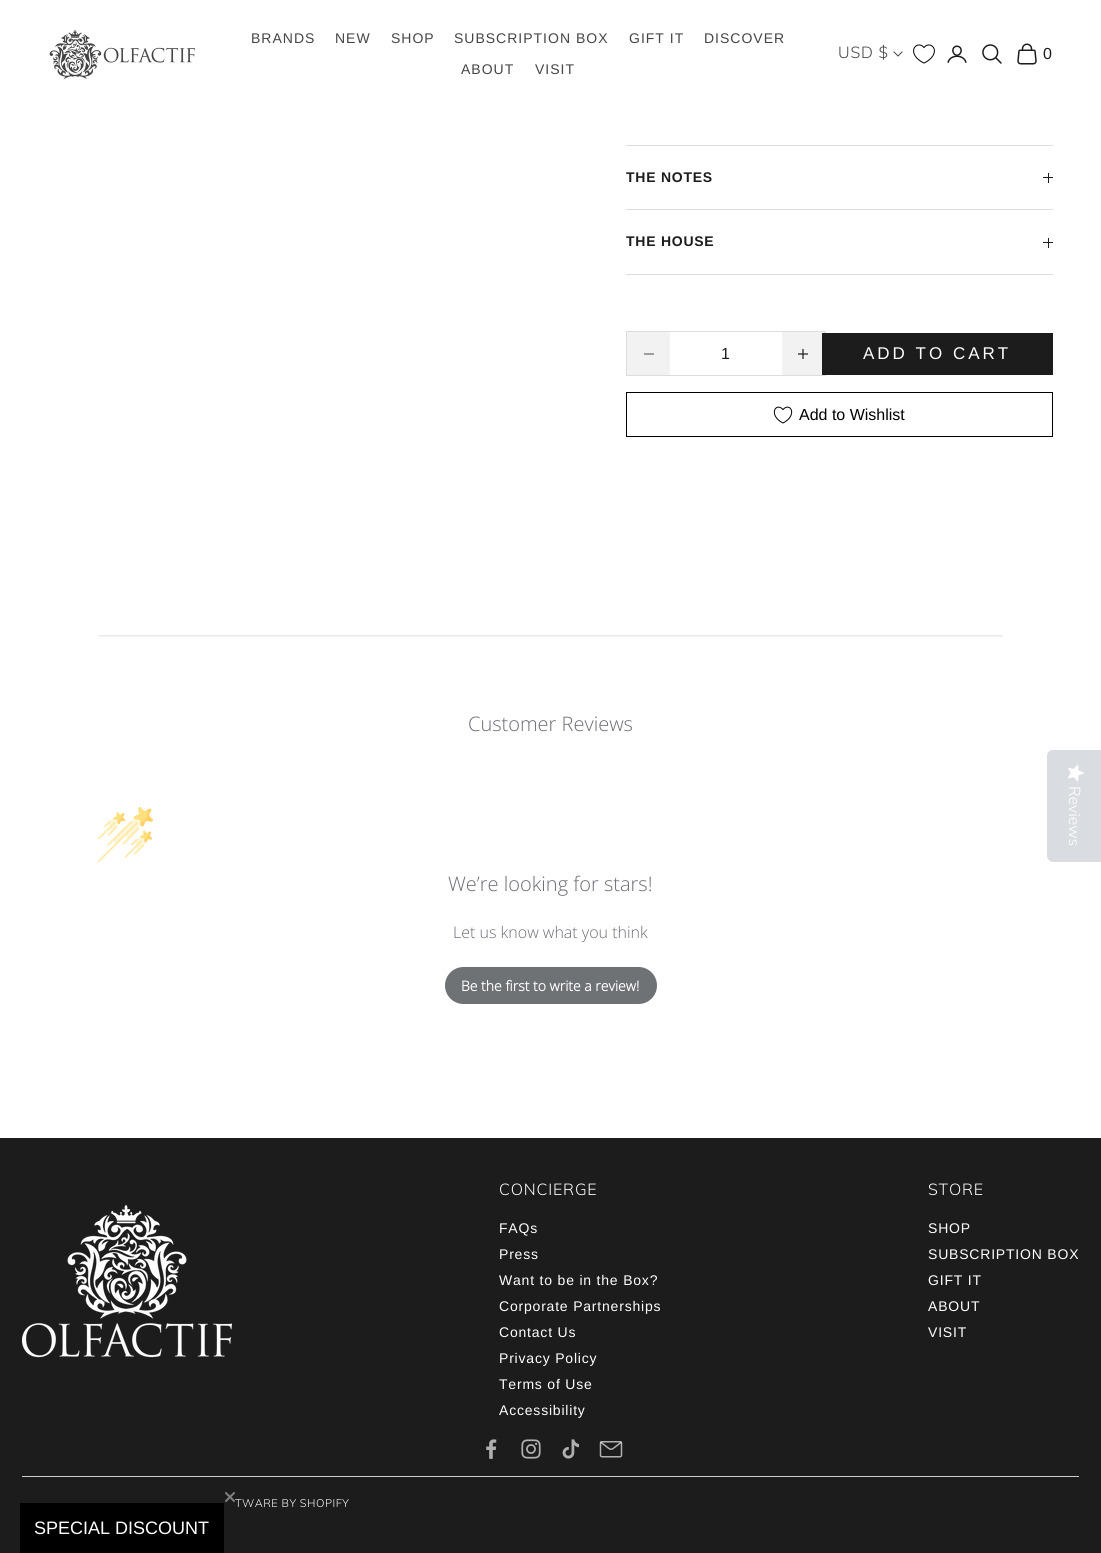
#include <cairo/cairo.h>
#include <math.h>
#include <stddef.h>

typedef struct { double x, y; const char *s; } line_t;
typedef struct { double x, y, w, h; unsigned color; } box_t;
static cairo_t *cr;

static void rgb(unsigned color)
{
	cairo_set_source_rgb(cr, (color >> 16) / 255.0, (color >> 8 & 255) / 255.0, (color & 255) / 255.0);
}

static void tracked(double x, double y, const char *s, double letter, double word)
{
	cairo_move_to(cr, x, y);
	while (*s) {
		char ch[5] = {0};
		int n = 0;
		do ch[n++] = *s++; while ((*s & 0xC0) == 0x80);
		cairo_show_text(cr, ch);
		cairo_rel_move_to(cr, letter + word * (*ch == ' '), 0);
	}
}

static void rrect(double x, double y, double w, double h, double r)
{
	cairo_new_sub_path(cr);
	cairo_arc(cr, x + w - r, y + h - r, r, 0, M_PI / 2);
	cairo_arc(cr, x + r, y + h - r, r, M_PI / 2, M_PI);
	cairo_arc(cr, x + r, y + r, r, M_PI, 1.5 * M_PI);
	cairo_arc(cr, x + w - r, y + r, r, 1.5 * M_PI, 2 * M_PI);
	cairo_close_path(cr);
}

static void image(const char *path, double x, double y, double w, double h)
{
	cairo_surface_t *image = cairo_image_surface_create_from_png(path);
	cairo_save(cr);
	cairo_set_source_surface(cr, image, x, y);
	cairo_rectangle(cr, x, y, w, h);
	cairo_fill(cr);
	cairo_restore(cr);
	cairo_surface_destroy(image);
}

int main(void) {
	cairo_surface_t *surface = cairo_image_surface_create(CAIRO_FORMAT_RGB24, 1101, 1553);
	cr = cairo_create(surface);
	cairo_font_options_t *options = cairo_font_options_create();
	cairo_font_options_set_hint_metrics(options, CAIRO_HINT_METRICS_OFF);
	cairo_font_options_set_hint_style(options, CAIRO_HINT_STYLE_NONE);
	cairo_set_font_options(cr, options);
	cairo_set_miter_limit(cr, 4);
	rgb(0xffffff);
	cairo_paint(cr);
	image("img/1.png", 49, 30, 146, 50);
	cairo_new_path(cr);
	cairo_move_to(cr, 894, 52);
	cairo_line_to(cr, 898, 56);
	cairo_line_to(cr, 902, 52);
	rgb(0x454545);
	cairo_set_line_width(cr, 1);
	cairo_set_line_cap(cr, CAIRO_LINE_CAP_SQUARE);
	cairo_stroke(cr);
	image("img/2.png", 913, 44, 22, 20);
	image("img/3.png", 947, 45, 20, 18);
	image("img/4.png", 982, 44, 20, 20);
	image("img/5.png", 1017, 43, 20, 22);
	{
		static const box_t items[] = {
			{626, 145, 427, 1, 0xdddddd},
			{626, 209, 427, 1, 0xdddddd},
			{1048, 173, 1, 10, 0x1c1c1c},
			{1043, 177, 10, 1, 0x1c1c1c},
			{626, 274, 427, 1, 0xdddddd},
			{1048, 238, 1, 10, 0x1c1c1c},
			{1043, 242, 10, 1, 0x1c1c1c},
		};
		for (size_t i = 0; i < sizeof items / sizeof *items; i++) {
			rgb(items[i].color);
			cairo_rectangle(cr, items[i].x, items[i].y, items[i].w, items[i].h);
			cairo_fill(cr);
		}
	}
	cairo_rectangle(cr, 626.5, 331.5, 199, 44);
	rgb(0xdddddd);
	cairo_set_line_cap(cr, CAIRO_LINE_CAP_BUTT);
	cairo_stroke(cr);
	rgb(0xf2f2f2);
	cairo_rectangle(cr, 627, 332, 43, 43);
	cairo_fill(cr);
	cairo_new_path(cr);
	cairo_move_to(cr, 644, 354);
	cairo_line_to(cr, 654, 354);
	rgb(0x676767);
	cairo_set_line_width(cr, 1.2);
	cairo_stroke(cr);
	rgb(0xf2f2f2);
	cairo_rectangle(cr, 782, 332, 43, 43);
	cairo_fill(cr);
	cairo_new_path(cr);
	cairo_move_to(cr, 803, 349);
	cairo_line_to(cr, 803, 359);
	cairo_move_to(cr, 798, 354);
	cairo_line_to(cr, 808, 354);
	rgb(0x1c1c1c);
	cairo_stroke(cr);
	cairo_rectangle(cr, 822.5, 333.5, 230, 41);
	cairo_fill_preserve(cr);
	cairo_set_line_width(cr, 1);
	cairo_stroke(cr);
	cairo_rectangle(cr, 626.5, 392.5, 426, 44);
	rgb(0x000000);
	cairo_stroke(cr);
	cairo_new_path(cr);
	cairo_move_to(cr, 783, 423);
	cairo_curve_to(cr, 768, 415.5, 775.5, 401.5, 783, 409.5);
	cairo_curve_to(cr, 790.5, 401.5, 798, 415.5, 783, 423);
	cairo_close_path(cr);
	cairo_stroke(cr);
	image("img/6.png", 98, 635, 905, 2);
	image("img/7.png", 98, 807, 55, 55);
	rgb(0x6e7275);
	rrect(445, 967, 212, 37, 18.5);
	cairo_fill(cr);
	rgb(0x1c1c1c);
	cairo_rectangle(cr, 0, 1138, 1101, 415);
	cairo_fill(cr);
	image("img/8.png", 22, 1204, 210, 154);
	image("img/9.png", 486, 1439, 11, 20);
	image("img/10.png", 521, 1439, 20, 20);
	image("img/11.png", 562, 1439, 17, 20);
	image("img/12.png", 599, 1441, 24, 17);
	rgb(0xcccccc);
	cairo_rectangle(cr, 22, 1476, 1057, 1);
	cairo_fill(cr);
	rgb(0xd9dce0);
	cairo_new_path(cr);
	cairo_move_to(cr, 1101, 750);
	cairo_line_to(cr, 1101, 862);
	cairo_line_to(cr, 1053, 862);
	cairo_curve_to(cr, 1050, 862, 1047, 859, 1047, 856);
	cairo_line_to(cr, 1047, 756);
	cairo_curve_to(cr, 1047, 752, 1050, 750, 1053, 750);
	cairo_close_path(cr);
	cairo_fill(cr);
	image("img/13.png", 1068, 764, 16, 18);
	cairo_new_path(cr);
	cairo_move_to(cr, 226, 1493);
	cairo_line_to(cr, 234, 1501);
	cairo_move_to(cr, 226, 1501);
	cairo_line_to(cr, 234, 1493);
	cairo_close_path(cr);
	rgb(0x808080);
	cairo_set_line_width(cr, 2);
	cairo_set_line_cap(cr, CAIRO_LINE_CAP_ROUND);
	cairo_set_line_join(cr, CAIRO_LINE_JOIN_ROUND);
	cairo_stroke(cr);
	rgb(0x000000);
	cairo_rectangle(cr, 20, 1503, 204, 50);
	cairo_fill(cr);
	cairo_select_font_face(cr, "Liberation Sans", CAIRO_FONT_SLANT_NORMAL, CAIRO_FONT_WEIGHT_NORMAL);
	cairo_set_font_size(cr, 14);
	rgb(0x454545);
	{
		static const line_t items[] = {
			{251, 43, "BRANDS"},
			{335, 43, "NEW"},
			{391, 43, "SHOP"},
			{454, 43, "SUBSCRIPTION BOX"},
			{629, 43, "GIFT IT"},
			{704, 43, "DISCOVER"},
			{461, 74, "ABOUT"},
			{535, 74, "VISIT"},
		};
		for (size_t i = 0; i < sizeof items / sizeof *items; i++) {
			tracked(items[i].x, items[i].y, items[i].s, 1, 0);
		}
	}
	cairo_select_font_face(cr, "Muli Light", CAIRO_FONT_SLANT_NORMAL, CAIRO_FONT_WEIGHT_NORMAL);
	cairo_set_font_size(cr, 16);
	tracked(838, 58, "USD $", 0.8, 0);
	cairo_select_font_face(cr, "Liberation Sans", CAIRO_FONT_SLANT_NORMAL, CAIRO_FONT_WEIGHT_NORMAL);
	rgb(0x1c1c1c);
	tracked(1043, 59, "0", 0.8, 0);
	cairo_select_font_face(cr, "Liberation Sans", CAIRO_FONT_SLANT_NORMAL, CAIRO_FONT_WEIGHT_BOLD);
	cairo_set_font_size(cr, 14);
	tracked(626, 182, "THE NOTES", 0.75, 0);
	tracked(626, 246, "THE HOUSE", 0.75, 0);
	cairo_select_font_face(cr, "Liberation Sans", CAIRO_FONT_SLANT_NORMAL, CAIRO_FONT_WEIGHT_NORMAL);
	cairo_set_font_size(cr, 16);
	cairo_move_to(cr, 721, 359);
	cairo_show_text(cr, "1");
	cairo_set_font_size(cr, 17);
	rgb(0xffffff);
	tracked(863, 359, "ADD TO CART", 3, 0);
	cairo_set_font_size(cr, 16);
	rgb(0x000000);
	cairo_move_to(cr, 799, 420);
	cairo_show_text(cr, "Add to Wishlist");
	cairo_select_font_face(cr, "Open Sans Light", CAIRO_FONT_SLANT_NORMAL, CAIRO_FONT_WEIGHT_NORMAL);
	cairo_set_font_size(cr, 20);
	rgb(0x6b6d76);
	cairo_move_to(cr, 468, 731);
	cairo_show_text(cr, "Customer Reviews");
	cairo_move_to(cr, 448, 891);
	cairo_show_text(cr, "We’re looking for stars!");
	cairo_set_font_size(cr, 16);
	cairo_move_to(cr, 453, 938);
	cairo_show_text(cr, "Let us know what you think");
	cairo_select_font_face(cr, "Open Sans", CAIRO_FONT_SLANT_NORMAL, CAIRO_FONT_WEIGHT_BOLD);
	cairo_set_font_size(cr, 14);
	rgb(0xffffff);
	cairo_move_to(cr, 461, 991);
	cairo_show_text(cr, "Be the first to write a review!");
	cairo_select_font_face(cr, "Muli Light", CAIRO_FONT_SLANT_NORMAL, CAIRO_FONT_WEIGHT_NORMAL);
	cairo_set_font_size(cr, 16);
	tracked(499, 1195, "CONCIERGE", 0.8, 0);
	cairo_select_font_face(cr, "Liberation Sans", CAIRO_FONT_SLANT_NORMAL, CAIRO_FONT_WEIGHT_NORMAL);
	cairo_set_font_size(cr, 14);
	{
		static const line_t items[] = {
			{499, 1233, "FAQs"},
			{499, 1259, "Press"},
			{499, 1285, "Want to be in the Box?"},
			{499, 1311, "Corporate Partnerships"},
			{499, 1337, "Contact Us"},
			{499, 1363, "Privacy Policy"},
			{499, 1389, "Terms of Use"},
			{499, 1415, "Accessibility"},
		};
		for (size_t i = 0; i < sizeof items / sizeof *items; i++) {
			tracked(items[i].x, items[i].y, items[i].s, 0.8, 0);
		}
	}
	cairo_select_font_face(cr, "Muli Light", CAIRO_FONT_SLANT_NORMAL, CAIRO_FONT_WEIGHT_NORMAL);
	cairo_set_font_size(cr, 16);
	tracked(928, 1195, "STORE", 0.8, 0);
	cairo_select_font_face(cr, "Liberation Sans", CAIRO_FONT_SLANT_NORMAL, CAIRO_FONT_WEIGHT_NORMAL);
	cairo_set_font_size(cr, 14);
	{
		static const line_t items[] = {
			{928, 1233, "SHOP"},
			{928, 1259, "SUBSCRIPTION BOX"},
			{928, 1285, "GIFT IT"},
			{928, 1311, "ABOUT"},
			{928, 1337, "VISIT"},
		};
		for (size_t i = 0; i < sizeof items / sizeof *items; i++) {
			tracked(items[i].x, items[i].y, items[i].s, 0.8, 0);
		}
	}
	cairo_select_font_face(cr, "Muli Light", CAIRO_FONT_SLANT_NORMAL, CAIRO_FONT_WEIGHT_NORMAL);
	cairo_set_font_size(cr, 11);
	tracked(235, 1507, "TWARE BY SHOPIFY", 0.5, 0);
	cairo_select_font_face(cr, "Nunito Sans Light", CAIRO_FONT_SLANT_NORMAL, CAIRO_FONT_WEIGHT_NORMAL);
	cairo_set_font_size(cr, 16);
	cairo_save(cr);
	cairo_translate(cr, 1069, 786);
	cairo_rotate(cr, 90 * M_PI / 180);
	cairo_move_to(cr, 0, 0);
	cairo_show_text(cr, "Reviews");
	cairo_restore(cr);
	cairo_select_font_face(cr, "Liberation Sans", CAIRO_FONT_SLANT_NORMAL, CAIRO_FONT_WEIGHT_NORMAL);
	cairo_set_font_size(cr, 18);
	cairo_move_to(cr, 34, 1534);
	cairo_show_text(cr, "SPECIAL DISCOUNT");
	cairo_surface_write_to_png(surface, "page.png");
	cairo_font_options_destroy(options);
	cairo_destroy(cr);
	cairo_surface_destroy(surface);
	return 0;
}
